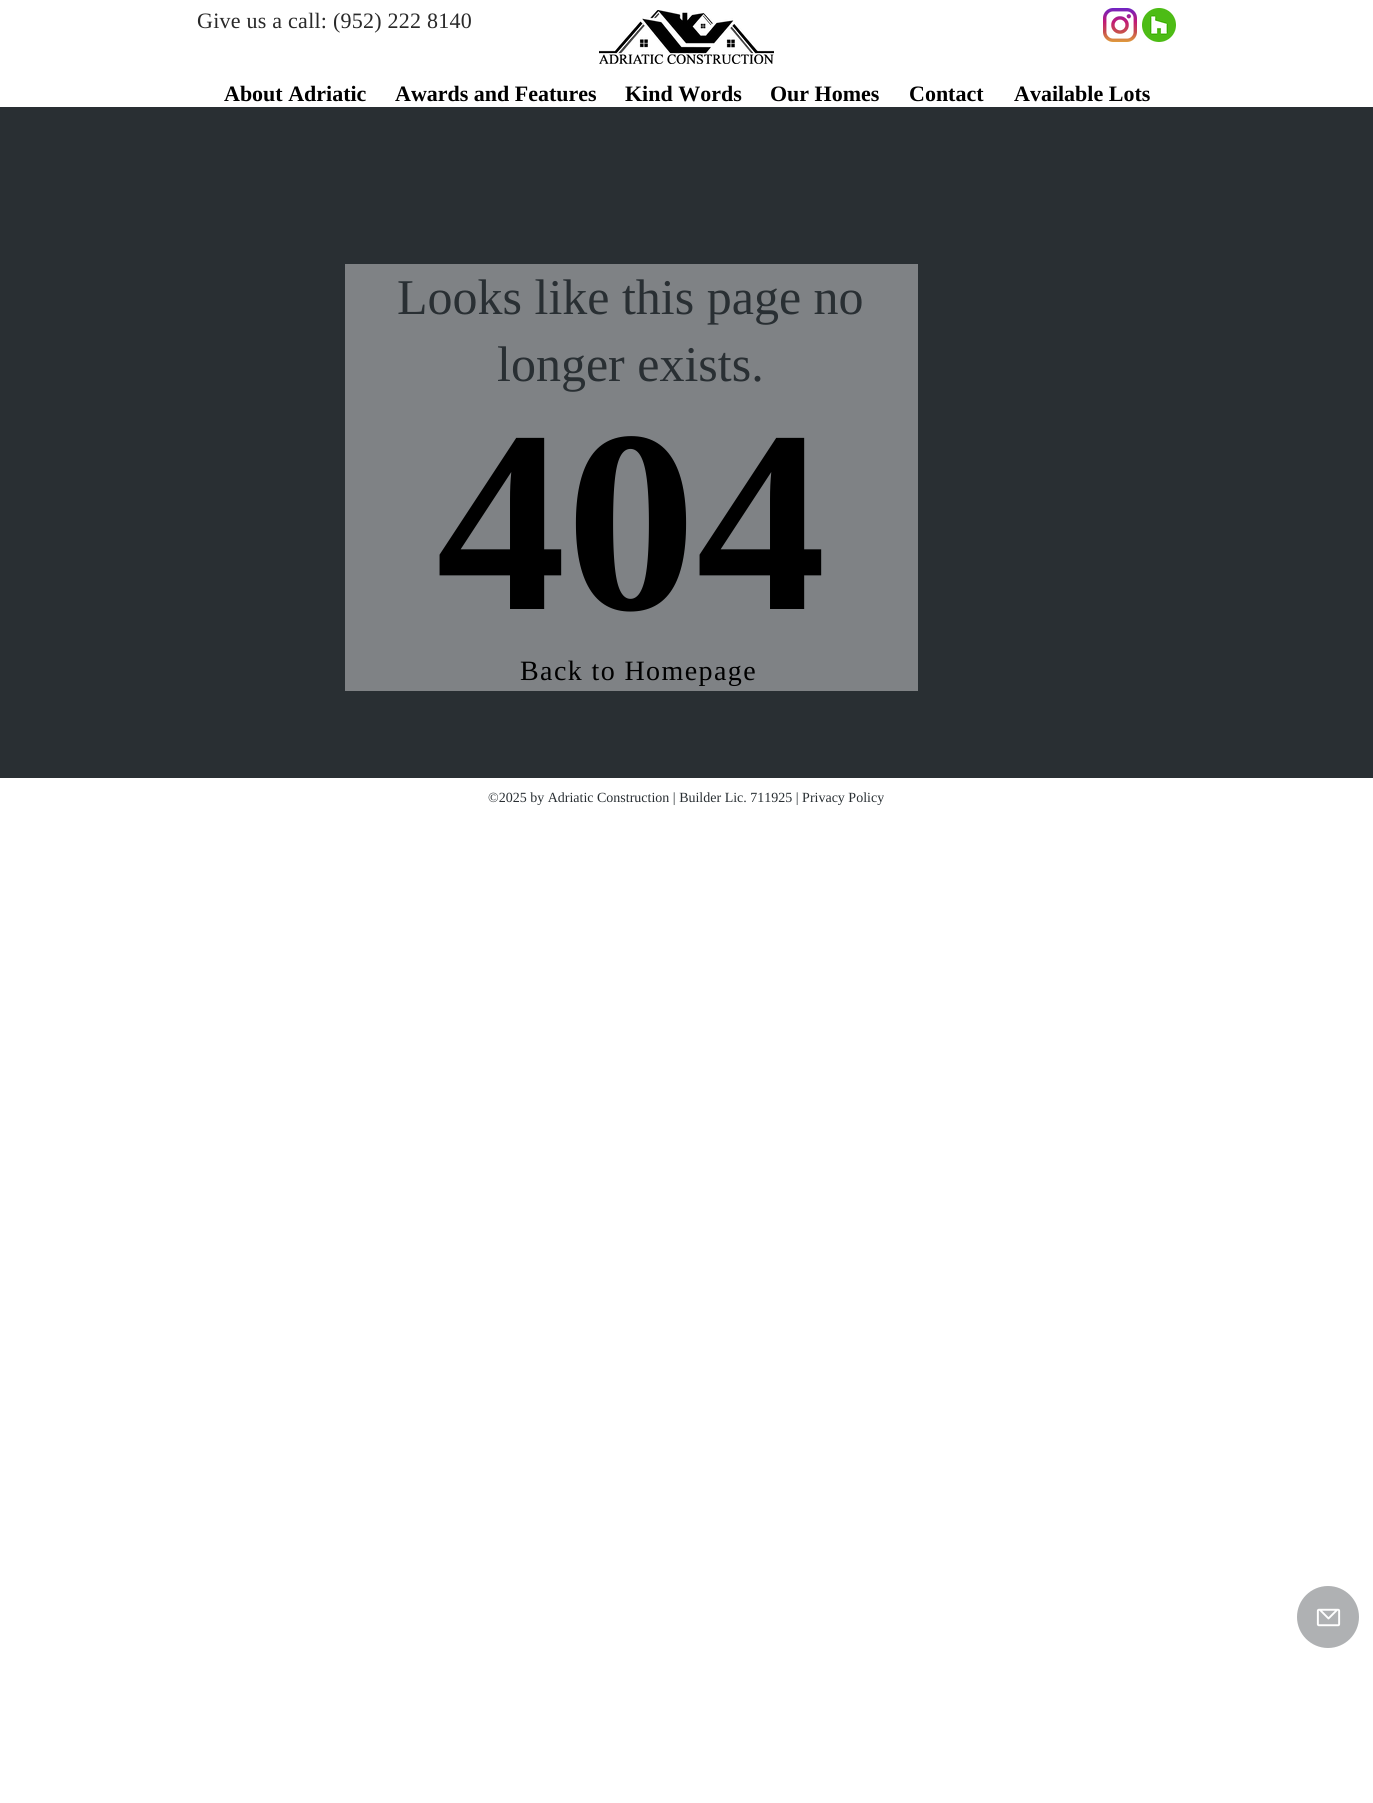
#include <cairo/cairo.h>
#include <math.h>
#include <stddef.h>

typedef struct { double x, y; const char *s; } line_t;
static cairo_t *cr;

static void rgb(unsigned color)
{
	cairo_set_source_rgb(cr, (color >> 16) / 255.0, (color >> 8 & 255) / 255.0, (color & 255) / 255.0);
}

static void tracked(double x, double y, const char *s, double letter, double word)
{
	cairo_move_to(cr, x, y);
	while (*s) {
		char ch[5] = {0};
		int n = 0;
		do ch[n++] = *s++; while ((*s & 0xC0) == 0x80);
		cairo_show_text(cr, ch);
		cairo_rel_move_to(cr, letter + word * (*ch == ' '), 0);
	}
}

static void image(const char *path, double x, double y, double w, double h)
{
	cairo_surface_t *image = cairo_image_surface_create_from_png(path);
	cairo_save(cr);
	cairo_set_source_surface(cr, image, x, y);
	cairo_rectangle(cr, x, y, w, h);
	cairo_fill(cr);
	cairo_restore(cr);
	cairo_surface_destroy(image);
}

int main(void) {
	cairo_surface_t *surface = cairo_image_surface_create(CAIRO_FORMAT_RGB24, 1373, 1803);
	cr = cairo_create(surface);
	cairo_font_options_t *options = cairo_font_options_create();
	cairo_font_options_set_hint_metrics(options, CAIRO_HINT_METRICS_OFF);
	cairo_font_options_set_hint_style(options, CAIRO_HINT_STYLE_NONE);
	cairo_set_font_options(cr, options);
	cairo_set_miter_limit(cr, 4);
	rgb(0xffffff);
	cairo_paint(cr);
	image("img/1.png", 599, 10, 175, 54);
	image("img/2.png", 1103, 8, 34, 34);
	image("img/3.png", 1142, 8, 34, 34);
	rgb(0x292f33);
	cairo_rectangle(cr, 0, 107, 1373, 671);
	cairo_fill(cr);
	rgb(0x7f8285);
	cairo_rectangle(cr, 345, 264, 573, 427);
	cairo_fill(cr);
	rgb(0xafb1b3);
	cairo_arc(cr, 1328, 1617, 31, 0, 2 * M_PI);
	cairo_fill(cr);
	image("img/4.png", 1316, 1608, 25, 19);
	cairo_select_font_face(cr, "Liberation Serif", CAIRO_FONT_SLANT_NORMAL, CAIRO_FONT_WEIGHT_NORMAL);
	cairo_set_font_size(cr, 22);
	rgb(0x292929);
	tracked(197, 28, "Give us a call: (952) 222 8140", 0.25, 0);
	cairo_select_font_face(cr, "Liberation Serif", CAIRO_FONT_SLANT_NORMAL, CAIRO_FONT_WEIGHT_BOLD);
	rgb(0x000000);
	{
		static const line_t items[] = {
			{224, 101, "About Adriatic"},
			{395, 101, "Awards and Features"},
			{625, 101, "Kind Words"},
			{770, 101, "Our Homes"},
			{909, 101, "Contact"},
			{1014, 101, "Available Lots"},
		};
		for (size_t i = 0; i < sizeof items / sizeof *items; i++) {
			cairo_move_to(cr, items[i].x, items[i].y);
			cairo_show_text(cr, items[i].s);
		}
	}
	cairo_select_font_face(cr, "Liberation Serif", CAIRO_FONT_SLANT_NORMAL, CAIRO_FONT_WEIGHT_NORMAL);
	cairo_set_font_size(cr, 50);
	rgb(0x292f33);
	cairo_move_to(cr, 397, 314);
	cairo_show_text(cr, "Looks like this page no");
	cairo_move_to(cr, 497, 381);
	cairo_show_text(cr, "longer exists.");
	cairo_select_font_face(cr, "Liberation Serif", CAIRO_FONT_SLANT_NORMAL, CAIRO_FONT_WEIGHT_BOLD);
	cairo_set_font_size(cr, 260);
	rgb(0x000000);
	cairo_move_to(cr, 436, 609);
	cairo_show_text(cr, "404");
	cairo_select_font_face(cr, "Liberation Serif", CAIRO_FONT_SLANT_NORMAL, CAIRO_FONT_WEIGHT_NORMAL);
	cairo_set_font_size(cr, 28);
	tracked(520, 680, "Back to Homepage", 1.4, 0);
	cairo_set_font_size(cr, 14);
	rgb(0x292f33);
	cairo_move_to(cr, 488, 802);
	cairo_show_text(cr, "©2025 by Adriatic Construction | Builder Lic. 711925 | Privacy Policy");
	cairo_surface_write_to_png(surface, "page.png");
	cairo_font_options_destroy(options);
	cairo_destroy(cr);
	cairo_surface_destroy(surface);
	return 0;
}
